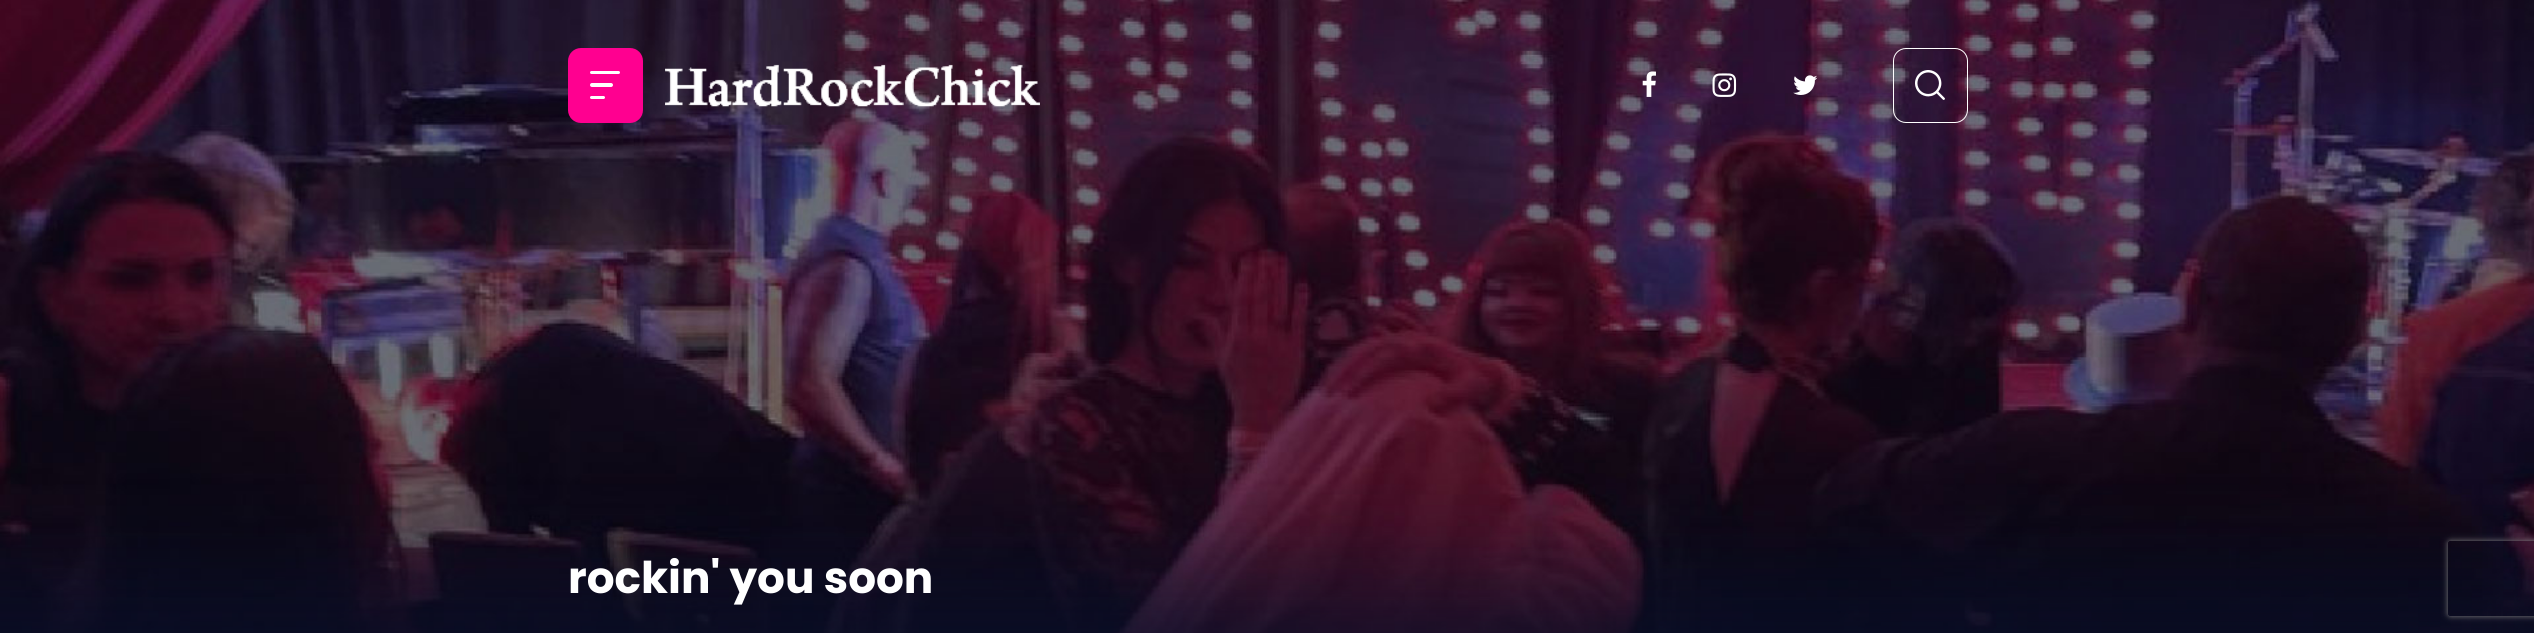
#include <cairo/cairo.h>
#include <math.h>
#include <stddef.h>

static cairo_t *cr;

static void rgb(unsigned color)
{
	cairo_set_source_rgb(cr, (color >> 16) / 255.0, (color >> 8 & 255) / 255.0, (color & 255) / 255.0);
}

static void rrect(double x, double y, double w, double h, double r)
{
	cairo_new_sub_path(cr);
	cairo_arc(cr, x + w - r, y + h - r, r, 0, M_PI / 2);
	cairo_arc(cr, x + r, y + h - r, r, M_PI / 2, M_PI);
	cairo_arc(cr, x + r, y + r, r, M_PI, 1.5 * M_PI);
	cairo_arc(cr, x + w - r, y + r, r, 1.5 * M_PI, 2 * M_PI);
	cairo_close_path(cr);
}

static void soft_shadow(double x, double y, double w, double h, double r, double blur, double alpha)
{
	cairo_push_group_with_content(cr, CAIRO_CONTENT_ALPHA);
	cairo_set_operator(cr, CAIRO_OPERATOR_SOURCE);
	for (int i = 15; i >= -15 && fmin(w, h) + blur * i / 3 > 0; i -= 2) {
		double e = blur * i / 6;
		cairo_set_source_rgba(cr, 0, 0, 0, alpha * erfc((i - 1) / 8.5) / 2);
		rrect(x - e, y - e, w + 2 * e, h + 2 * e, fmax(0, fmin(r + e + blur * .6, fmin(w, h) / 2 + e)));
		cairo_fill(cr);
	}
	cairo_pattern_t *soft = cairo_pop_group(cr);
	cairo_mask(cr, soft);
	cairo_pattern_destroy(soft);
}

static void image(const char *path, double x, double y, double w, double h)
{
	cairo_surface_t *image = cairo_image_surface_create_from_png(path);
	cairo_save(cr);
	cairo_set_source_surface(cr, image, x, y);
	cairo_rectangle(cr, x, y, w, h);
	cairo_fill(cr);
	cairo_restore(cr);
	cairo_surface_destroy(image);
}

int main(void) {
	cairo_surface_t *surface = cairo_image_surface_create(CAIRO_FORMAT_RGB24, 2534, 633);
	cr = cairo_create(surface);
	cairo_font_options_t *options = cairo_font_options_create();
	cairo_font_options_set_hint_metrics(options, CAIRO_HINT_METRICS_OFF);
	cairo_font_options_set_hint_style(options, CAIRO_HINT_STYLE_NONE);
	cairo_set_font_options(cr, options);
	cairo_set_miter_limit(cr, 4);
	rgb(0xffffff);
	cairo_paint(cr);
	image("img/6.png", 0, 0, 2534, 633);
	rgb(0xff0090);
	rrect(568, 48, 75, 75, 13);
	cairo_fill(cr);
	rgb(0xffffff);
	rrect(590, 71, 30, 3, 1.5);
	cairo_fill(cr);
	rrect(590, 83, 23, 4, 2);
	cairo_fill(cr);
	rrect(590, 96, 15, 3, 1.5);
	cairo_fill(cr);
	image("img/1.png", 665, 64, 375, 43);
	image("img/2.png", 1642, 71, 14, 26);
	image("img/3.png", 1712, 73, 25, 24);
	image("img/4.png", 1793, 75, 25, 20);
	rrect(1893.5, 48.5, 74, 74, 12.5);
	cairo_set_line_width(cr, 1);
	cairo_stroke(cr);
	image("img/5.png", 1915, 70, 30, 30);
	cairo_save(cr);
	cairo_set_fill_rule(cr, CAIRO_FILL_RULE_EVEN_ODD);
	cairo_new_path(cr);
	cairo_move_to(cr, 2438, 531);
	cairo_line_to(cr, 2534, 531);
	cairo_line_to(cr, 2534, 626);
	cairo_line_to(cr, 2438, 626);
	cairo_close_path(cr);
	cairo_move_to(cr, 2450.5, 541);
	cairo_line_to(cr, 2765.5, 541);
	cairo_curve_to(cr, 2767, 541, 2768, 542, 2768, 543.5);
	cairo_line_to(cr, 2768, 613.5);
	cairo_curve_to(cr, 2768, 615, 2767, 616, 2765.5, 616);
	cairo_line_to(cr, 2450.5, 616);
	cairo_curve_to(cr, 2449, 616, 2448, 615, 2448, 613.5);
	cairo_line_to(cr, 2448, 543.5);
	cairo_curve_to(cr, 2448, 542, 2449, 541, 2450.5, 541);
	cairo_close_path(cr);
	cairo_clip(cr);
	rgb(0x808080);
	soft_shadow(2448, 541, 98, 75, 2.5, 3, 1);
	cairo_restore(cr);
	cairo_select_font_face(cr, "Poppins", CAIRO_FONT_SLANT_NORMAL, CAIRO_FONT_WEIGHT_BOLD);
	cairo_set_font_size(cr, 43.75);
	cairo_move_to(cr, 568, 593);
	cairo_show_text(cr, "rockin' you soon");
	cairo_surface_write_to_png(surface, "page.png");
	cairo_font_options_destroy(options);
	cairo_destroy(cr);
	cairo_surface_destroy(surface);
	return 0;
}
